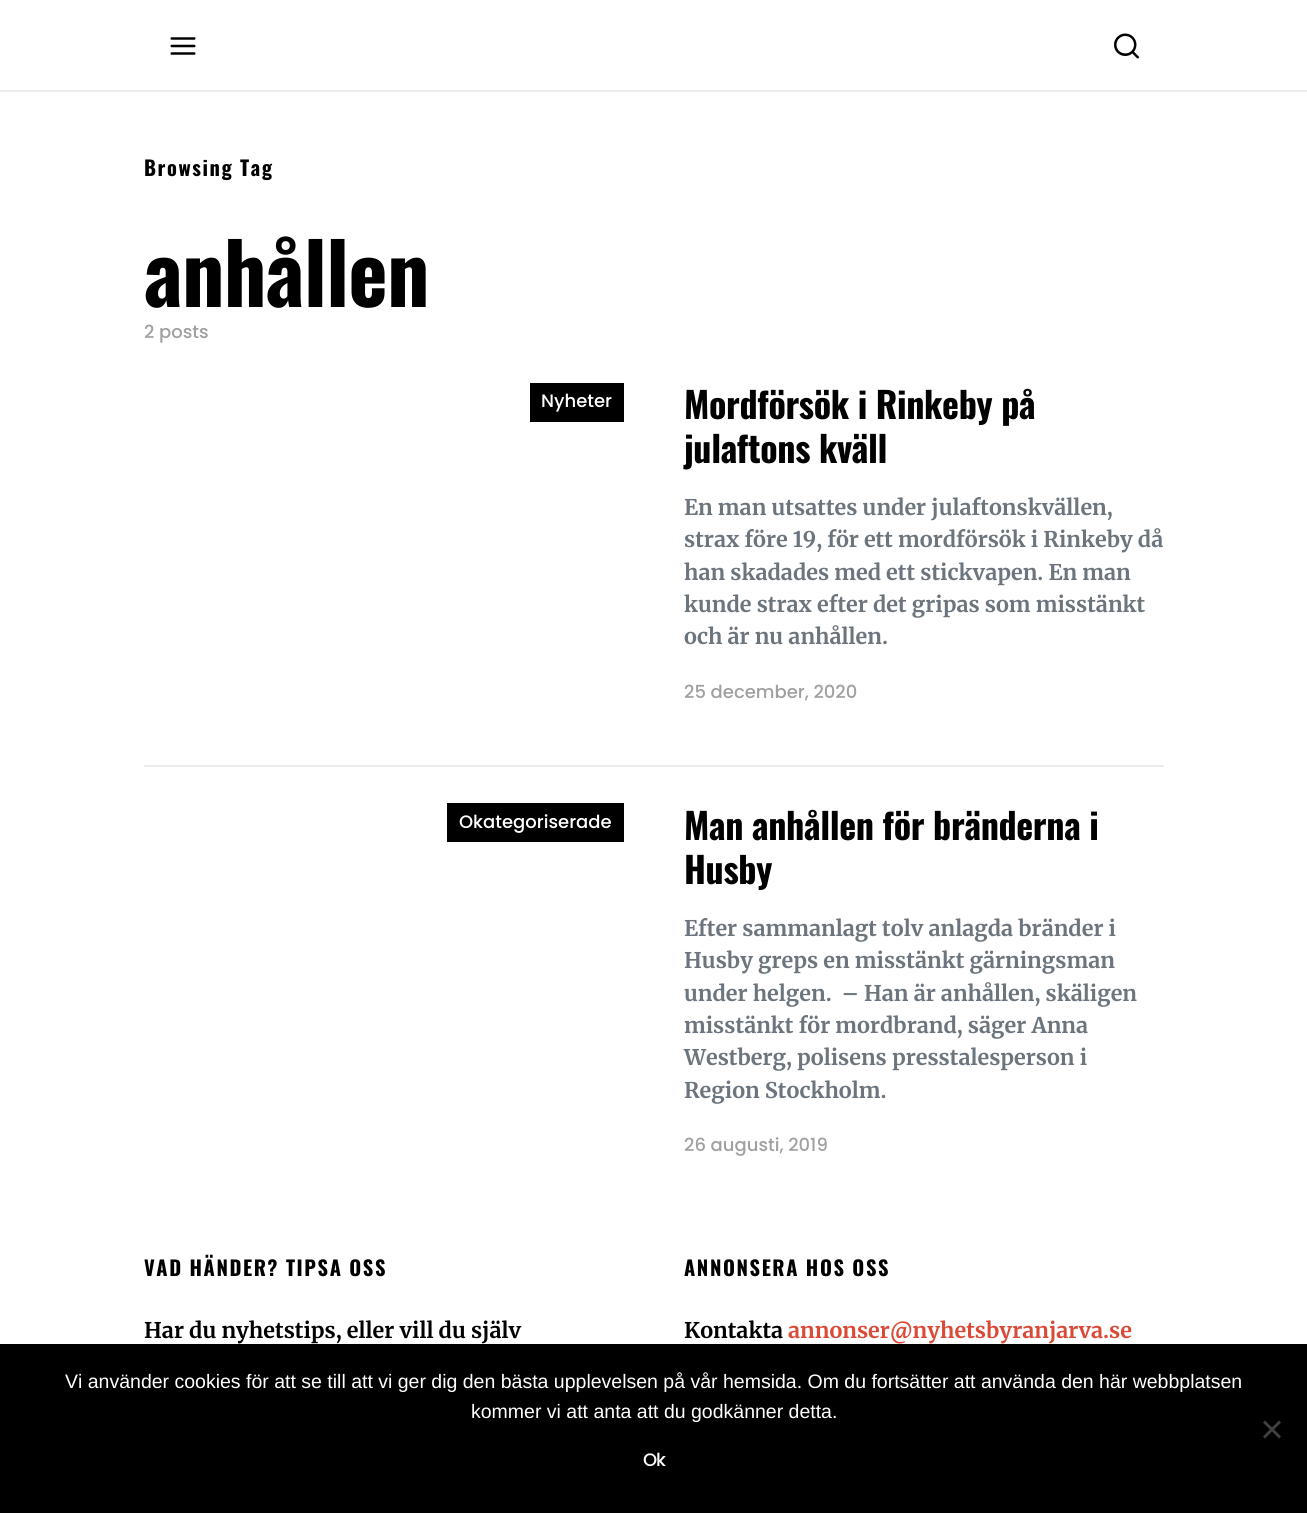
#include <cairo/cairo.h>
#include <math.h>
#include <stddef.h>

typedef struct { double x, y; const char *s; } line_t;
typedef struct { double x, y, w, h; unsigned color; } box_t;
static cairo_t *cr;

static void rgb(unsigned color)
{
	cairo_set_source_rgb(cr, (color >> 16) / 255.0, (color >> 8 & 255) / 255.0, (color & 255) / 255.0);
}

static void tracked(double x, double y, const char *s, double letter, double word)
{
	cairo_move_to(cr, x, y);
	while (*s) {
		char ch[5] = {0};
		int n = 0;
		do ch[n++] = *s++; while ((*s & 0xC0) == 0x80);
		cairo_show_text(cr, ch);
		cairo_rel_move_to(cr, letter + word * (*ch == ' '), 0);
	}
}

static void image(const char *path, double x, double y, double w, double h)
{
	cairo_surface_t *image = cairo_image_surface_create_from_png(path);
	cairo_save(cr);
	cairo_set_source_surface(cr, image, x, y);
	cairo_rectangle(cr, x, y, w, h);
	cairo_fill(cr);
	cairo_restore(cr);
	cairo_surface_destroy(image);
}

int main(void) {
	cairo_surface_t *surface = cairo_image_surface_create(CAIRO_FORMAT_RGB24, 1307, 1513);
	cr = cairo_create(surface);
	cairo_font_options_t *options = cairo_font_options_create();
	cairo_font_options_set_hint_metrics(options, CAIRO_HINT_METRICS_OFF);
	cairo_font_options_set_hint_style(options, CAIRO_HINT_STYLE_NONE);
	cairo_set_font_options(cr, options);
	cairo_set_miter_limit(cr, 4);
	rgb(0xffffff);
	cairo_paint(cr);
	rgb(0xe9ecef);
	cairo_rectangle(cr, 0, 90, 1307, 2);
	cairo_fill(cr);
	image("img/1.png", 170, 37, 26, 18);
	image("img/2.png", 1114, 33, 25, 26);
	{
		static const box_t items[] = {
			{530, 383, 94, 39, 0x000000},
			{144, 765, 1020, 2, 0xe9ecef},
			{447, 803, 177, 39, 0x000000},
			{0, 1344, 1307, 169, 0x000000},
		};
		for (size_t i = 0; i < sizeof items / sizeof *items; i++) {
			rgb(items[i].color);
			cairo_rectangle(cr, items[i].x, items[i].y, items[i].w, items[i].h);
			cairo_fill(cr);
		}
	}
	rgb(0x404040);
	cairo_new_path(cr);
	cairo_move_to(cr, 1279, 1420.5);
	cairo_line_to(cr, 1281, 1422.5);
	cairo_line_to(cr, 1265, 1438.5);
	cairo_line_to(cr, 1263, 1436.5);
	cairo_close_path(cr);
	cairo_fill(cr);
	cairo_new_path(cr);
	cairo_move_to(cr, 1263, 1422.5);
	cairo_line_to(cr, 1265, 1420.5);
	cairo_line_to(cr, 1281, 1436.5);
	cairo_line_to(cr, 1279, 1438.5);
	cairo_close_path(cr);
	cairo_fill(cr);
	cairo_select_font_face(cr, "Oswald", CAIRO_FONT_SLANT_NORMAL, CAIRO_FONT_WEIGHT_BOLD);
	cairo_set_font_size(cr, 20.4);
	rgb(0x000000);
	tracked(144, 176, "Browsing Tag", 1.6, 0);
	cairo_set_font_size(cr, 84);
	tracked(144, 307, "anhållen", -0.75, 0);
	cairo_select_font_face(cr, "Poppins Medium", CAIRO_FONT_SLANT_NORMAL, CAIRO_FONT_WEIGHT_NORMAL);
	cairo_set_font_size(cr, 18);
	rgb(0xa0a0a0);
	cairo_move_to(cr, 144, 338);
	cairo_show_text(cr, "2 posts");
	rgb(0xffffff);
	cairo_move_to(cr, 541, 407);
	cairo_show_text(cr, "Nyheter");
	cairo_select_font_face(cr, "Oswald", CAIRO_FONT_SLANT_NORMAL, CAIRO_FONT_WEIGHT_BOLD);
	cairo_set_font_size(cr, 36);
	rgb(0x000000);
	tracked(684, 419, "Mordförsök i Rinkeby på", -0.35, 0);
	tracked(684, 463, "julaftons kväll", -0.35, 0);
	cairo_select_font_face(cr, "Merriweather", CAIRO_FONT_SLANT_NORMAL, CAIRO_FONT_WEIGHT_BOLD);
	cairo_set_font_size(cr, 21.6);
	rgb(0x6c757d);
	{
		static const line_t items[] = {
			{684, 515, "En man utsattes under julaftonskvällen,"},
			{684, 547, "strax före 19, för ett mordförsök i Rinkeby då"},
			{684, 580, "han skadades med ett stickvapen. En man"},
			{684, 612, "kunde strax efter det gripas som misstänkt"},
			{684, 644, "och är nu anhållen."},
		};
		for (size_t i = 0; i < sizeof items / sizeof *items; i++) {
			cairo_move_to(cr, items[i].x, items[i].y);
			cairo_show_text(cr, items[i].s);
		}
	}
	cairo_select_font_face(cr, "Poppins Medium", CAIRO_FONT_SLANT_NORMAL, CAIRO_FONT_WEIGHT_NORMAL);
	cairo_set_font_size(cr, 18);
	rgb(0xa0a0a0);
	cairo_move_to(cr, 684, 698);
	cairo_show_text(cr, "25 december, 2020");
	rgb(0xffffff);
	cairo_move_to(cr, 459, 828);
	cairo_show_text(cr, "Okategoriserade");
	cairo_select_font_face(cr, "Oswald", CAIRO_FONT_SLANT_NORMAL, CAIRO_FONT_WEIGHT_BOLD);
	cairo_set_font_size(cr, 36);
	rgb(0x000000);
	tracked(684, 840, "Man anhållen för bränderna i", -0.35, 0);
	tracked(684, 884, "Husby", -0.35, 0);
	cairo_select_font_face(cr, "Merriweather", CAIRO_FONT_SLANT_NORMAL, CAIRO_FONT_WEIGHT_BOLD);
	cairo_set_font_size(cr, 21.6);
	rgb(0x6c757d);
	{
		static const line_t items[] = {
			{684, 936, "Efter sammanlagt tolv anlagda bränder i"},
			{684, 968, "Husby greps en misstänkt gärningsman"},
			{684, 1001, "under helgen.  – Han är anhållen, skäligen"},
			{684, 1033, "misstänkt för mordbrand, säger Anna"},
			{684, 1065, "Westberg, polisens presstalesperson i"},
			{684, 1098, "Region Stockholm."},
		};
		for (size_t i = 0; i < sizeof items / sizeof *items; i++) {
			cairo_move_to(cr, items[i].x, items[i].y);
			cairo_show_text(cr, items[i].s);
		}
	}
	cairo_select_font_face(cr, "Poppins Medium", CAIRO_FONT_SLANT_NORMAL, CAIRO_FONT_WEIGHT_NORMAL);
	cairo_set_font_size(cr, 18);
	rgb(0xa0a0a0);
	cairo_move_to(cr, 684, 1151);
	cairo_show_text(cr, "26 augusti, 2019");
	cairo_select_font_face(cr, "Oswald", CAIRO_FONT_SLANT_NORMAL, CAIRO_FONT_WEIGHT_BOLD);
	cairo_set_font_size(cr, 20.4);
	rgb(0x000000);
	tracked(144, 1276, "VAD HÄNDER? TIPSA OSS", 1.6, 0);
	cairo_select_font_face(cr, "Merriweather", CAIRO_FONT_SLANT_NORMAL, CAIRO_FONT_WEIGHT_BOLD);
	cairo_set_font_size(cr, 21.6);
	cairo_move_to(cr, 144, 1338);
	cairo_show_text(cr, "Har du nyhetstips, eller vill du själv");
	cairo_select_font_face(cr, "Oswald", CAIRO_FONT_SLANT_NORMAL, CAIRO_FONT_WEIGHT_BOLD);
	cairo_set_font_size(cr, 20.4);
	tracked(684, 1276, "ANNONSERA HOS OSS", 1.6, 0);
	cairo_select_font_face(cr, "Merriweather", CAIRO_FONT_SLANT_NORMAL, CAIRO_FONT_WEIGHT_BOLD);
	cairo_set_font_size(cr, 21.6);
	cairo_move_to(cr, 684, 1338);
	cairo_show_text(cr, "Kontakta");
	rgb(0xdb4a37);
	cairo_move_to(cr, 788, 1338);
	cairo_show_text(cr, "annonser@nyhetsbyranjarva.se");
	cairo_select_font_face(cr, "Liberation Sans", CAIRO_FONT_SLANT_NORMAL, CAIRO_FONT_WEIGHT_NORMAL);
	cairo_set_font_size(cr, 19.5);
	rgb(0xffffff);
	cairo_move_to(cr, 65, 1388);
	cairo_show_text(cr, "Vi använder cookies för att se till att vi ger dig den bästa upplevelsen på vår hemsida. Om du fortsätter att använda den här webbplatsen");
	cairo_move_to(cr, 471, 1418);
	cairo_show_text(cr, "kommer vi att anta att du godkänner detta.");
	cairo_select_font_face(cr, "Poppins Medium", CAIRO_FONT_SLANT_NORMAL, CAIRO_FONT_WEIGHT_NORMAL);
	cairo_set_font_size(cr, 18);
	tracked(643, 1466, "Ok", -1, 0);
	cairo_surface_write_to_png(surface, "page.png");
	cairo_font_options_destroy(options);
	cairo_destroy(cr);
	cairo_surface_destroy(surface);
	return 0;
}
